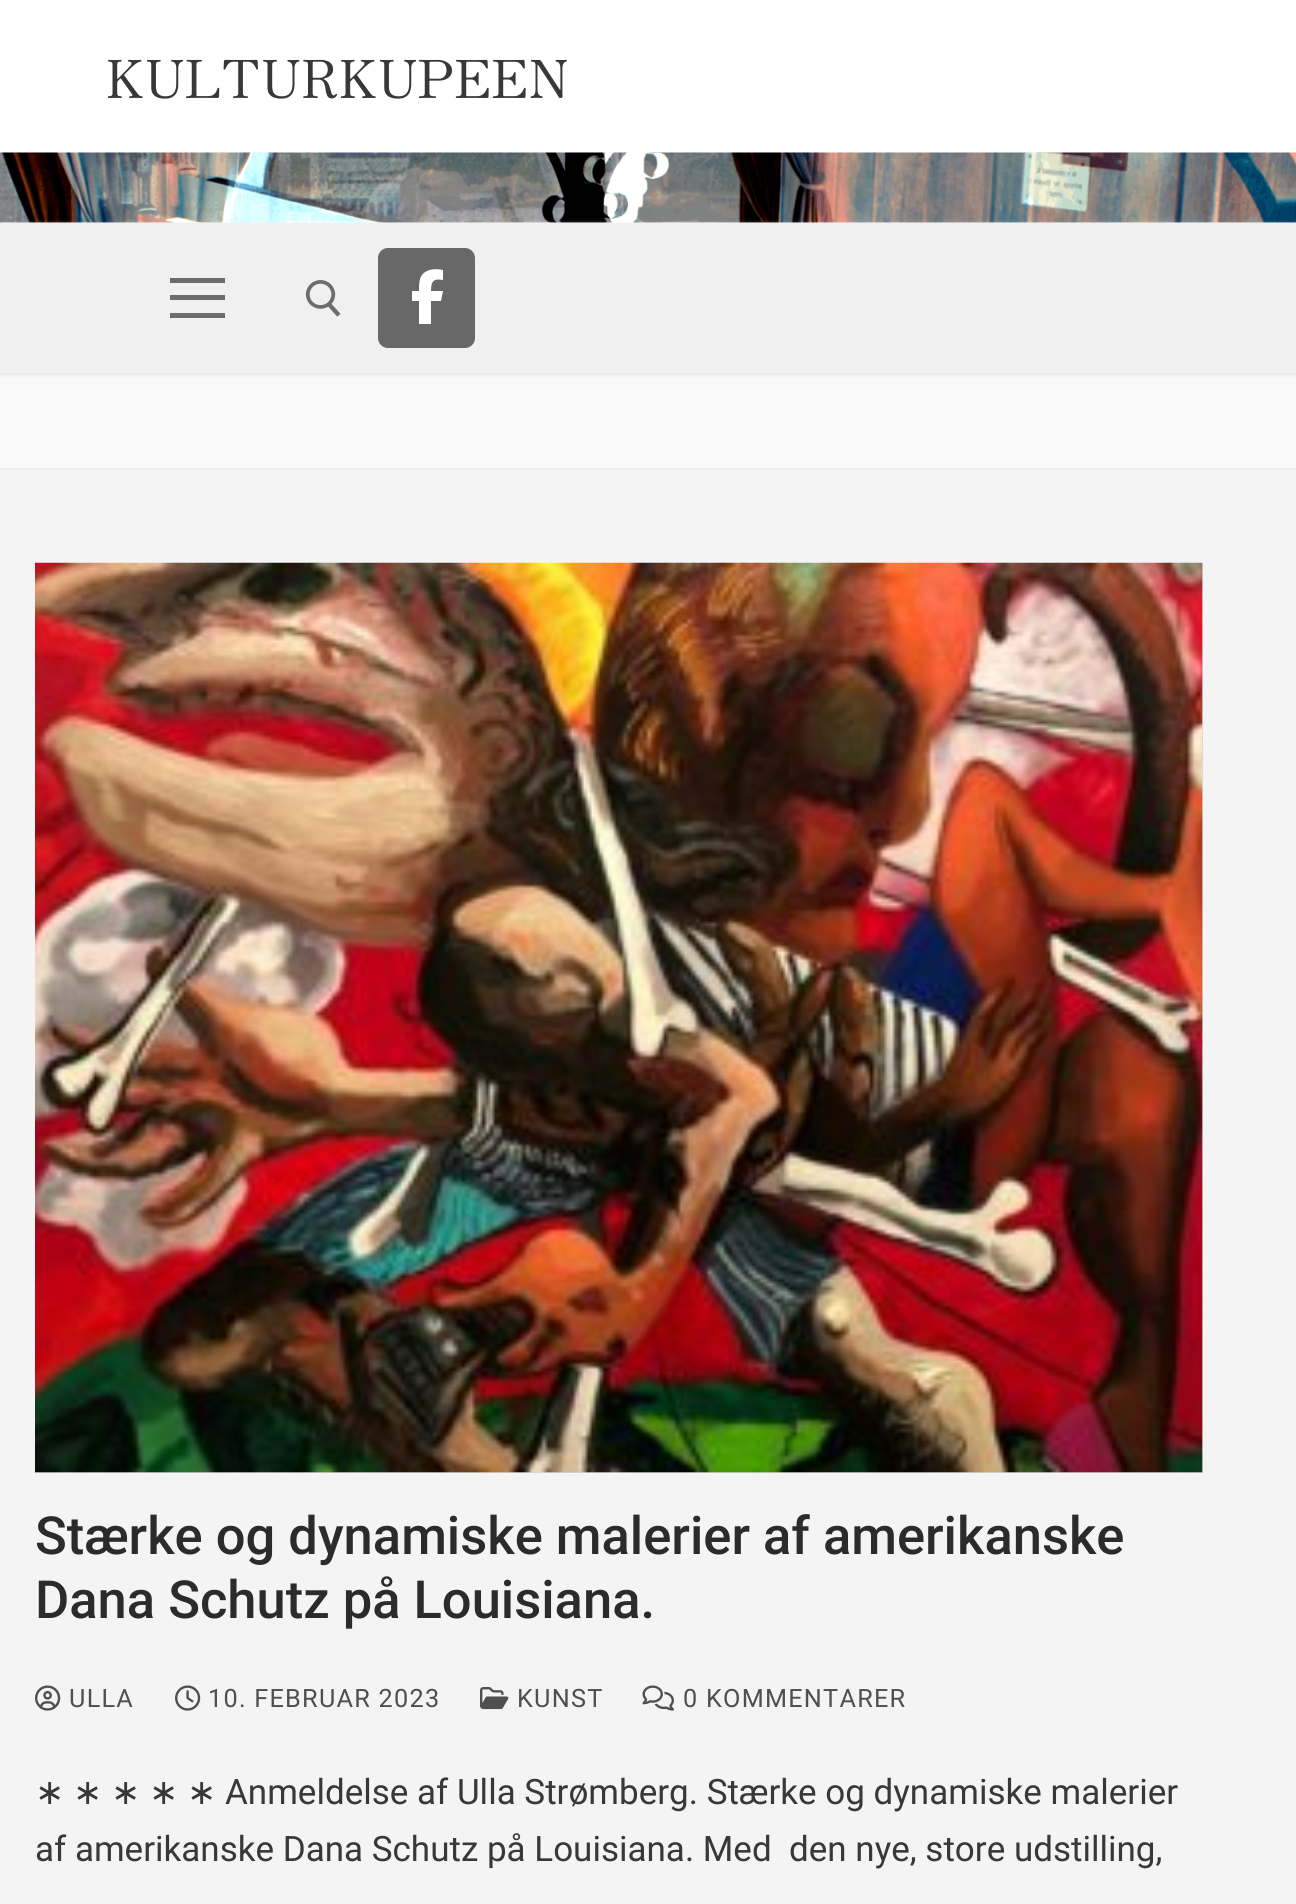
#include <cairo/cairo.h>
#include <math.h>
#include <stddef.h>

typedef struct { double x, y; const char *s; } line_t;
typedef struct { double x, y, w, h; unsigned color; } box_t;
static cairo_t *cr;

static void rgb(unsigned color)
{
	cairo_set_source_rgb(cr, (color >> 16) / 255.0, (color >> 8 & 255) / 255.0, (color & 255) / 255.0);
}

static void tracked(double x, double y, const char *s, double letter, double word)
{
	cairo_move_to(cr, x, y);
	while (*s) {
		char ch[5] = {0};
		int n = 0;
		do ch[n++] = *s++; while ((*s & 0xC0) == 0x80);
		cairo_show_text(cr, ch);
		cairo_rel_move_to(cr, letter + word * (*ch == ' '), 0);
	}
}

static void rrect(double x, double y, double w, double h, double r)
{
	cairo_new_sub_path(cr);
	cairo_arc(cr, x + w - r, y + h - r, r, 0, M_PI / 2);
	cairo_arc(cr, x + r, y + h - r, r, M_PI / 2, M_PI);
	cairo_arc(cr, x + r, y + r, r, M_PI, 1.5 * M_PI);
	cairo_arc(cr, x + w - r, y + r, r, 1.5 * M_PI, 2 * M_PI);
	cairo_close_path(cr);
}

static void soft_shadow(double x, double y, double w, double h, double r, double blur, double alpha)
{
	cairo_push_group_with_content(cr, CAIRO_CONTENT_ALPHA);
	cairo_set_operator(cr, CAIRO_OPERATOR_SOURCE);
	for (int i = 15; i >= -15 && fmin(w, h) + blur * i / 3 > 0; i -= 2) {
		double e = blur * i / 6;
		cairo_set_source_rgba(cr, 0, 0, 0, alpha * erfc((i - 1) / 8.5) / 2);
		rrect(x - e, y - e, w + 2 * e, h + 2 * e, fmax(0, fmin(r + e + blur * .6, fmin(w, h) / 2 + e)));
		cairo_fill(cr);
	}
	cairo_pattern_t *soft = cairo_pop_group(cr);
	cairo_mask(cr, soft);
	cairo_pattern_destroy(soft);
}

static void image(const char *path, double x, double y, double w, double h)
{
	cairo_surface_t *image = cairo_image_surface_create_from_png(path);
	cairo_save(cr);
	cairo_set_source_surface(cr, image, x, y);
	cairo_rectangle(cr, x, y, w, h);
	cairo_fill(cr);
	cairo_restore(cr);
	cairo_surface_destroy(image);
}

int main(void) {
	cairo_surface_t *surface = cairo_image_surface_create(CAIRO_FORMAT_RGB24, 1296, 1904);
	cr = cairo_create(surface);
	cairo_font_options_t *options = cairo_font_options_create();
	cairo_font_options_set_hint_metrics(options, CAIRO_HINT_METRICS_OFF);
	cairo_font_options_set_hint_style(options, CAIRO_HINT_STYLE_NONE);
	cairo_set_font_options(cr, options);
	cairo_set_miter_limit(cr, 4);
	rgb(0xffffff);
	cairo_paint(cr);
	rgb(0xe1e5ea);
	soft_shadow(0, 155, 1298, 70, 0, 2.5, 1);
	rgb(0xffffff);
	cairo_rectangle(cr, 0, 222, 1296, 1);
	cairo_fill(cr);
	image("img/1.png", 0, 152, 1296, 71);
	rgb(0xf9f9f9);
	cairo_rectangle(cr, 0, 373, 1296, 95);
	cairo_fill(cr);
	rgb(0xe1e5ea);
	soft_shadow(0, 225, 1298, 150, 0, 2.5, 1);
	{
		static const box_t items[] = {
			{0, 223, 1296, 150, 0xf0f0f0},
			{170, 295, 55, 5, 0x6c6c6c},
			{170, 278, 55, 5, 0x6c6c6c},
			{170, 313, 55, 5, 0x6c6c6c},
		};
		for (size_t i = 0; i < sizeof items / sizeof *items; i++) {
			rgb(items[i].color);
			cairo_rectangle(cr, items[i].x, items[i].y, items[i].w, items[i].h);
			cairo_fill(cr);
		}
	}
	image("img/2.png", 305, 280, 36, 37);
	rgb(0x686868);
	rrect(378, 248, 97, 100, 10);
	cairo_fill(cr);
	rgb(0xffffff);
	cairo_new_path(cr);
	cairo_move_to(cr, 419, 301);
	cairo_line_to(cr, 419, 324);
	cairo_line_to(cr, 419, 301);
	cairo_line_to(cr, 419, 324);
	cairo_line_to(cr, 431, 324);
	cairo_line_to(cr, 431, 301);
	cairo_line_to(cr, 441, 301);
	cairo_line_to(cr, 443, 291);
	cairo_line_to(cr, 431, 291);
	cairo_curve_to(cr, 431, 282, 433, 278, 443, 280);
	cairo_line_to(cr, 443, 270);
	cairo_curve_to(cr, 435, 268, 423, 269, 420, 279);
	cairo_curve_to(cr, 419, 283, 419, 287, 419, 291);
	cairo_line_to(cr, 412, 291);
	cairo_line_to(cr, 412, 301);
	cairo_close_path(cr);
	cairo_fill(cr);
	{
		static const box_t items[] = {
			{0, 468, 1296, 2, 0xeaecee},
			{0, 470, 1296, 1434, 0xf4f4f4},
			{35, 563, 1168, 910, 0xd5d5d5},
		};
		for (size_t i = 0; i < sizeof items / sizeof *items; i++) {
			rgb(items[i].color);
			cairo_rectangle(cr, items[i].x, items[i].y, items[i].w, items[i].h);
			cairo_fill(cr);
		}
	}
	image("img/3.png", 35, 562, 1168, 911);
	image("img/4.png", 35, 1685, 26, 26);
	image("img/5.png", 175, 1685, 26, 26);
	image("img/6.png", 480, 1687, 29, 23);
	image("img/7.png", 642, 1685, 32, 26);
	cairo_select_font_face(cr, "Zen Old Mincho", CAIRO_FONT_SLANT_NORMAL, CAIRO_FONT_WEIGHT_NORMAL);
	cairo_set_font_size(cr, 52.5);
	rgb(0x383838);
	tracked(106, 98, "KULTURKUPEEN", 1, 0);
	cairo_select_font_face(cr, "Roboto Medium", CAIRO_FONT_SLANT_NORMAL, CAIRO_FONT_WEIGHT_NORMAL);
	rgb(0x2b2b2b);
	cairo_move_to(cr, 35, 1554);
	cairo_show_text(cr, "Stærke og dynamiske malerier af amerikanske");
	cairo_move_to(cr, 35, 1618);
	cairo_show_text(cr, "Dana Schutz på Louisiana.");
	cairo_select_font_face(cr, "Roboto", CAIRO_FONT_SLANT_NORMAL, CAIRO_FONT_WEIGHT_NORMAL);
	cairo_set_font_size(cr, 25.25);
	rgb(0x4f4f4f);
	{
		static const line_t items[] = {
			{69, 1707, "ULLA"},
			{208, 1707, "10. FEBRUAR 2023"},
			{517, 1707, "KUNST"},
			{683, 1707, "0 KOMMENTARER"},
		};
		for (size_t i = 0; i < sizeof items / sizeof *items; i++) {
			tracked(items[i].x, items[i].y, items[i].s, 1.25, 0);
		}
	}
	cairo_select_font_face(cr, "DejaVu Sans", CAIRO_FONT_SLANT_NORMAL, CAIRO_FONT_WEIGHT_NORMAL);
	cairo_set_font_size(cr, 35);
	rgb(0x383838);
	{
		static const line_t items[] = {
			{35, 1804, "∗"},
			{73, 1804, "∗"},
			{111, 1804, "∗"},
			{149, 1804, "∗"},
			{187, 1804, "∗"},
		};
		for (size_t i = 0; i < sizeof items / sizeof *items; i++) {
			cairo_move_to(cr, items[i].x, items[i].y);
			cairo_show_text(cr, items[i].s);
		}
	}
	cairo_select_font_face(cr, "Roboto", CAIRO_FONT_SLANT_NORMAL, CAIRO_FONT_WEIGHT_NORMAL);
	cairo_move_to(cr, 225, 1804);
	cairo_show_text(cr, "Anmeldelse af Ulla Strømberg. Stærke og dynamiske malerier");
	cairo_move_to(cr, 35, 1861);
	cairo_show_text(cr, "af amerikanske Dana Schutz på Louisiana. Med  den nye, store udstilling,");
	cairo_surface_write_to_png(surface, "page.png");
	cairo_font_options_destroy(options);
	cairo_destroy(cr);
	cairo_surface_destroy(surface);
	return 0;
}
